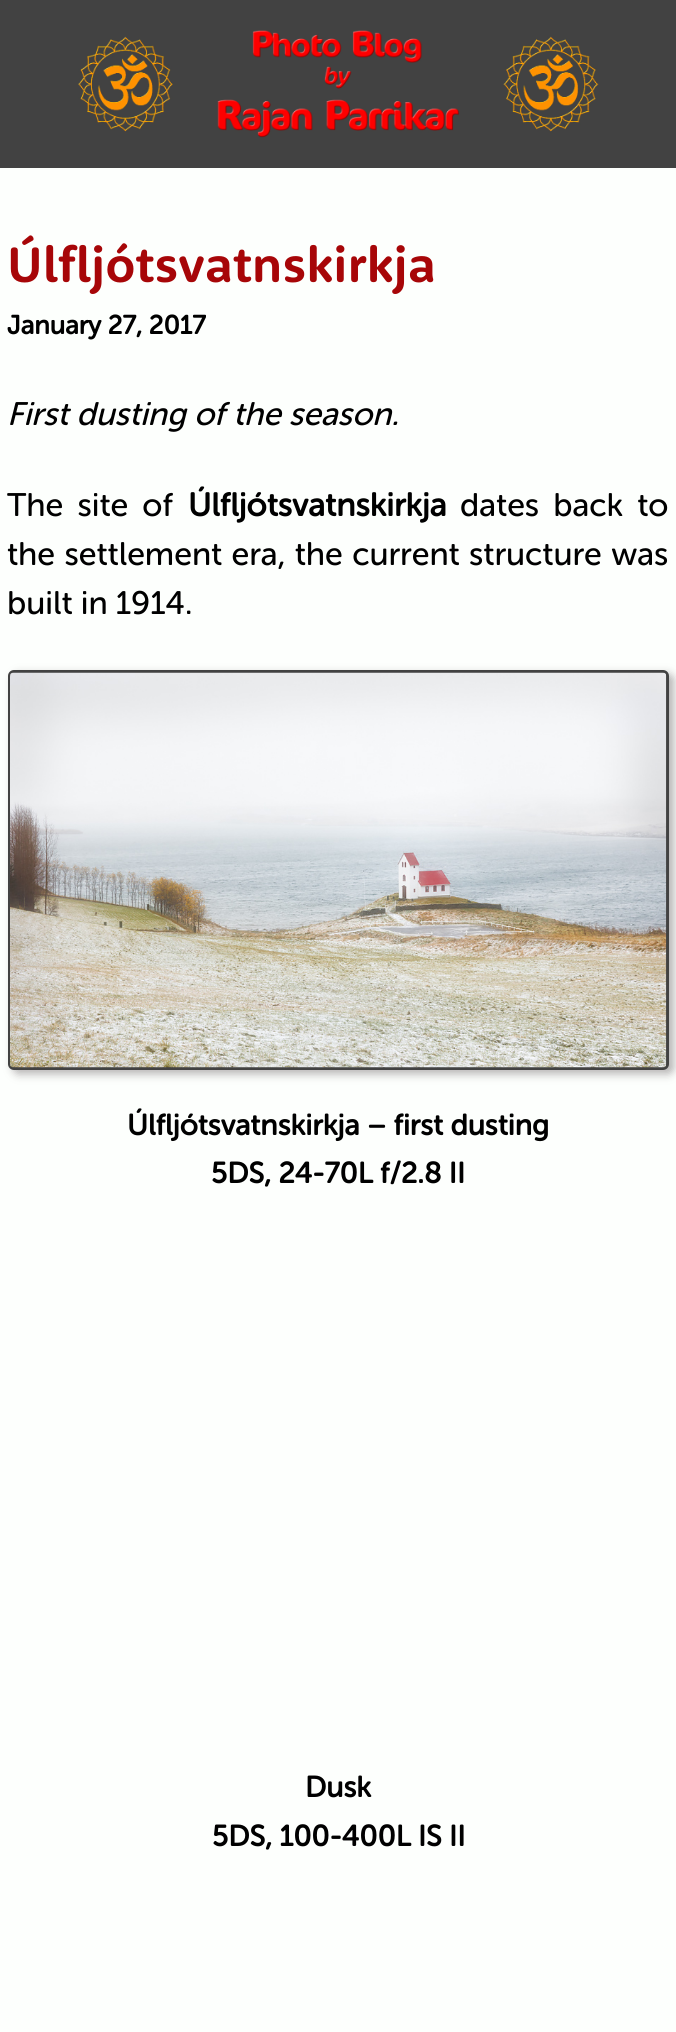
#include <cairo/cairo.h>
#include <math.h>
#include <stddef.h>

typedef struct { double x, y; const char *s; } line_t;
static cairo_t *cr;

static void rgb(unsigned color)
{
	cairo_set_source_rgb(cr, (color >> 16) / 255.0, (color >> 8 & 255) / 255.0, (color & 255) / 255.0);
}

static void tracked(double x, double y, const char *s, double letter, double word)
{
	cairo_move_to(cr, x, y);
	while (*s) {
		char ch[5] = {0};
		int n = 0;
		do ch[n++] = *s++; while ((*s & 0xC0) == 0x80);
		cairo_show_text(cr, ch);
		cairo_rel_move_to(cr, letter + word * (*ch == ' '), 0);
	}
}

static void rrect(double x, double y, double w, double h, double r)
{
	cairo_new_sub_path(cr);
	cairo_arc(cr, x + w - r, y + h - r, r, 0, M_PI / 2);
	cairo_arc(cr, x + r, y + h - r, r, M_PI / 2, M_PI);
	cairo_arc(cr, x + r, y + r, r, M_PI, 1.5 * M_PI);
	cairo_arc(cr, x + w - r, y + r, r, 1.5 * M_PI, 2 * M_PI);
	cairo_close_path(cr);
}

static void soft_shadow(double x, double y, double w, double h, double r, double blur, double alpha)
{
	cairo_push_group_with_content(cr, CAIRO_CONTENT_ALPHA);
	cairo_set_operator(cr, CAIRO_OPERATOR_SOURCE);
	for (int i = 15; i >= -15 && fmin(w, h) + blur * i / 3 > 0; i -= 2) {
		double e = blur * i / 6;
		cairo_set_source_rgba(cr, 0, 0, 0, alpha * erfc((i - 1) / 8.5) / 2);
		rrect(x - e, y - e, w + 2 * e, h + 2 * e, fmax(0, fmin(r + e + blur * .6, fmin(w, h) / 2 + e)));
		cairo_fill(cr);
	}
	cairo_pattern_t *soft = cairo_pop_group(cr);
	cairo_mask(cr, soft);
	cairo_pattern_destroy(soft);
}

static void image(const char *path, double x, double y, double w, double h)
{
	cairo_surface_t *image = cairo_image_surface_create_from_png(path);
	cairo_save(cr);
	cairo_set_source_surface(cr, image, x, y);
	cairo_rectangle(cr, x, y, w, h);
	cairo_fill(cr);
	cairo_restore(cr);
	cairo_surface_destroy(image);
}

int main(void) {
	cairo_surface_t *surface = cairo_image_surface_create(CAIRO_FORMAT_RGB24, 676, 2032);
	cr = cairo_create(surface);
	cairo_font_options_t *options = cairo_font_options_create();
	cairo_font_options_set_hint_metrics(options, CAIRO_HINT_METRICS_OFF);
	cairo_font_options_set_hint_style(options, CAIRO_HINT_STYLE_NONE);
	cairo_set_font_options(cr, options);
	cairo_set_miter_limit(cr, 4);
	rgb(0x424242);
	cairo_paint(cr);
	image("img/1.png", 78, 30, 521, 108);
	rgb(0xfdfffd);
	cairo_rectangle(cr, 0, 168, 676, 1864);
	cairo_fill(cr);
	rgb(0xb6b4b4);
	soft_shadow(13, 674, 661, 400, 6, 4.5, 1);
	rrect(9.5, 671.5, 658, 397, 4.5);
	rgb(0x424242);
	cairo_set_line_width(cr, 3);
	cairo_stroke(cr);
	image("img/2.png", 10, 672, 657, 396);
	cairo_select_font_face(cr, "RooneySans", CAIRO_FONT_SLANT_NORMAL, CAIRO_FONT_WEIGHT_BOLD);
	cairo_set_font_size(cr, 51.25);
	rgb(0xa70608);
	cairo_move_to(cr, 7, 282);
	cairo_show_text(cr, "Úlfljótsvatnskirkja");
	cairo_select_font_face(cr, "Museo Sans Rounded", CAIRO_FONT_SLANT_NORMAL, CAIRO_FONT_WEIGHT_BOLD);
	cairo_set_font_size(cr, 26.25);
	rgb(0x000000);
	cairo_move_to(cr, 7, 334);
	cairo_show_text(cr, "January 27, 2017");
	cairo_select_font_face(cr, "Museo Sans Rounded", CAIRO_FONT_SLANT_ITALIC, CAIRO_FONT_WEIGHT_NORMAL);
	cairo_set_font_size(cr, 32.5);
	cairo_move_to(cr, 7, 425);
	cairo_show_text(cr, "First dusting of the season.");
	cairo_select_font_face(cr, "Museo Sans Rounded", CAIRO_FONT_SLANT_NORMAL, CAIRO_FONT_WEIGHT_NORMAL);
	tracked(7, 516, "The site of", 0, 6);
	cairo_select_font_face(cr, "Museo Sans Rounded", CAIRO_FONT_SLANT_NORMAL, CAIRO_FONT_WEIGHT_BOLD);
	cairo_move_to(cr, 188, 516);
	cairo_show_text(cr, "Úlfljótsvatnskirkja");
	cairo_select_font_face(cr, "Museo Sans Rounded", CAIRO_FONT_SLANT_NORMAL, CAIRO_FONT_WEIGHT_NORMAL);
	tracked(460, 516, "dates back to", 0, 6);
	tracked(7, 565, "the settlement era, the current structure was", 0, 1.25);
	cairo_move_to(cr, 7, 614);
	cairo_show_text(cr, "built in 1914.");
	cairo_select_font_face(cr, "Museo Sans Rounded", CAIRO_FONT_SLANT_NORMAL, CAIRO_FONT_WEIGHT_BOLD);
	cairo_set_font_size(cr, 29.25);
	{
		static const line_t items[] = {
			{127, 1135, "Úlfljótsvatnskirkja – first dusting"},
			{211, 1183, "5DS, 24-70L f/2.8 II"},
			{305, 1797, "Dusk"},
			{212, 1846, "5DS, 100-400L IS II"},
		};
		for (size_t i = 0; i < sizeof items / sizeof *items; i++) {
			cairo_move_to(cr, items[i].x, items[i].y);
			cairo_show_text(cr, items[i].s);
		}
	}
	cairo_surface_write_to_png(surface, "page.png");
	cairo_font_options_destroy(options);
	cairo_destroy(cr);
	cairo_surface_destroy(surface);
	return 0;
}
